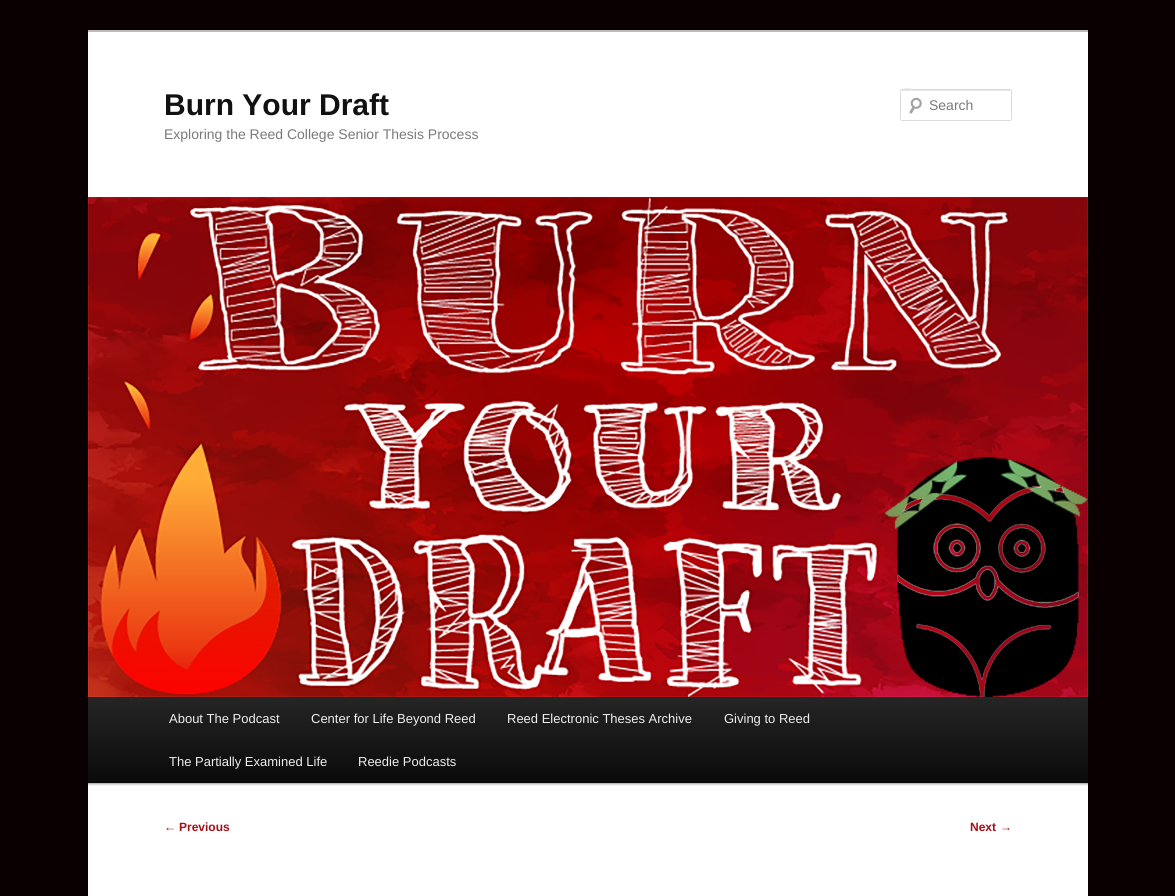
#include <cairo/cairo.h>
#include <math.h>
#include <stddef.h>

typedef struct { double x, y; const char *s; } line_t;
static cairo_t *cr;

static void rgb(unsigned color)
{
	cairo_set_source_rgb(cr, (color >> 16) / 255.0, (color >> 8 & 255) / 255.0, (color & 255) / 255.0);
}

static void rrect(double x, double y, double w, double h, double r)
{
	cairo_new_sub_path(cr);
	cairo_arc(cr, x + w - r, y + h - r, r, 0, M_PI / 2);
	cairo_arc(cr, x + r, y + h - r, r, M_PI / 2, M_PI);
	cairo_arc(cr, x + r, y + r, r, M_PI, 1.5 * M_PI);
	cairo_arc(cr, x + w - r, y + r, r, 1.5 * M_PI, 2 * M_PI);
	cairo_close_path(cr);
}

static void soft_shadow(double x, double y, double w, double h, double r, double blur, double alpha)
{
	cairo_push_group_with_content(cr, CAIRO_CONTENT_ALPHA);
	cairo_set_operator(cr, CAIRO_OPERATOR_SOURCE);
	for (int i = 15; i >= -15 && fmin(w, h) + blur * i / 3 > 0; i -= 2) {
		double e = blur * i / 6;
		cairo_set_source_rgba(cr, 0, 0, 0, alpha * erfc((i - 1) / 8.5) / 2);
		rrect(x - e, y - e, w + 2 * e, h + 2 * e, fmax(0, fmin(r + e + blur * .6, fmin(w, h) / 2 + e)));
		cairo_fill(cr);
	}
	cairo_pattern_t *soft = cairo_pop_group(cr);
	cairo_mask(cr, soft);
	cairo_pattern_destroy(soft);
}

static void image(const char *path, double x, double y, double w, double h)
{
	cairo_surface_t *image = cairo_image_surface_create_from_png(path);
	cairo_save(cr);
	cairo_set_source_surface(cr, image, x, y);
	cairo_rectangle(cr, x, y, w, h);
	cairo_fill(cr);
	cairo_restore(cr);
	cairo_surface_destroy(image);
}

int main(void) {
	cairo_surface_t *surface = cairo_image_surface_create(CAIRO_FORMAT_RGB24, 1175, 896);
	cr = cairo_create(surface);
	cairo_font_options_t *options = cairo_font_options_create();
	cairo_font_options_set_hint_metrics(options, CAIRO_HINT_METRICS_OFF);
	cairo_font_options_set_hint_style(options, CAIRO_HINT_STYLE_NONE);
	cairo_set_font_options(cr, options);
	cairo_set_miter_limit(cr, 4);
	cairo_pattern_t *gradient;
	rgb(0x0a0002);
	cairo_paint(cr);
	rgb(0xffffff);
	cairo_rectangle(cr, 88, 32, 1000, 864);
	cairo_fill(cr);
	rgb(0xbbbbbb);
	cairo_rectangle(cr, 88, 30, 1000, 2);
	cairo_fill(cr);
	image("img/1.png", 909, 97, 13, 17);
	rgb(0xe6e6e6);
	cairo_new_path(cr);
	cairo_move_to(cr, 902, 91);
	cairo_line_to(cr, 1011, 91);
	cairo_line_to(cr, 1011, 92);
	cairo_line_to(cr, 1010, 90);
	cairo_line_to(cr, 920, 90);
	cairo_curve_to(cr, 916, 90, 901, 85, 901, 92);
	cairo_curve_to(cr, 901, 91, 901, 91, 902, 91);
	cairo_close_path(cr);
	cairo_fill(cr);
	rrect(900.5, 89.5, 111, 31, 1.5);
	rgb(0xdddddd);
	cairo_set_line_width(cr, 1);
	cairo_stroke(cr);
	rgb(0x000000);
	soft_shadow(88, 698, 1000, 86, 0, 1, 0.4);
	image("img/2.png", 88, 197, 1000, 500);
	gradient = cairo_pattern_create_linear(588, 697, 588, 783);
	cairo_pattern_add_color_stop_rgba(gradient, 0, 0.145, 0.145, 0.145, 1);
	cairo_pattern_add_color_stop_rgba(gradient, 1, 0.039, 0.039, 0.039, 1);
	cairo_set_source(cr, gradient);
	cairo_pattern_destroy(gradient);
	cairo_rectangle(cr, 88, 697, 1000, 86);
	cairo_fill(cr);
	cairo_select_font_face(cr, "Liberation Sans", CAIRO_FONT_SLANT_NORMAL, CAIRO_FONT_WEIGHT_BOLD);
	cairo_set_font_size(cr, 30);
	rgb(0x111111);
	cairo_move_to(cr, 164, 115);
	cairo_show_text(cr, "Burn Your Draft");
	cairo_select_font_face(cr, "Liberation Sans", CAIRO_FONT_SLANT_NORMAL, CAIRO_FONT_WEIGHT_NORMAL);
	cairo_set_font_size(cr, 14);
	rgb(0x7a7a7a);
	cairo_move_to(cr, 164, 139);
	cairo_show_text(cr, "Exploring the Reed College Senior Thesis Process");
	cairo_move_to(cr, 929, 110);
	cairo_show_text(cr, "Search");
	cairo_set_font_size(cr, 13);
	rgb(0xeeeeee);
	{
		static const line_t items[] = {
			{169, 723, "About The Podcast"},
			{311, 723, "Center for Life Beyond Reed"},
			{507, 723, "Reed Electronic Theses Archive"},
			{724, 723, "Giving to Reed"},
			{169, 766, "The Partially Examined Life"},
			{358, 766, "Reedie Podcasts"},
		};
		for (size_t i = 0; i < sizeof items / sizeof *items; i++) {
			cairo_move_to(cr, items[i].x, items[i].y);
			cairo_show_text(cr, items[i].s);
		}
	}
	cairo_set_font_size(cr, 12);
	rgb(0xa70e16);
	cairo_move_to(cr, 164, 831);
	cairo_show_text(cr, "←");
	cairo_select_font_face(cr, "Liberation Sans", CAIRO_FONT_SLANT_NORMAL, CAIRO_FONT_WEIGHT_BOLD);
	cairo_move_to(cr, 179, 831);
	cairo_show_text(cr, "Previous");
	cairo_move_to(cr, 970, 831);
	cairo_show_text(cr, "Next");
	cairo_select_font_face(cr, "Liberation Sans", CAIRO_FONT_SLANT_NORMAL, CAIRO_FONT_WEIGHT_NORMAL);
	cairo_move_to(cr, 1000, 831);
	cairo_show_text(cr, "→");
	cairo_surface_write_to_png(surface, "page.png");
	cairo_font_options_destroy(options);
	cairo_destroy(cr);
	cairo_surface_destroy(surface);
	return 0;
}
